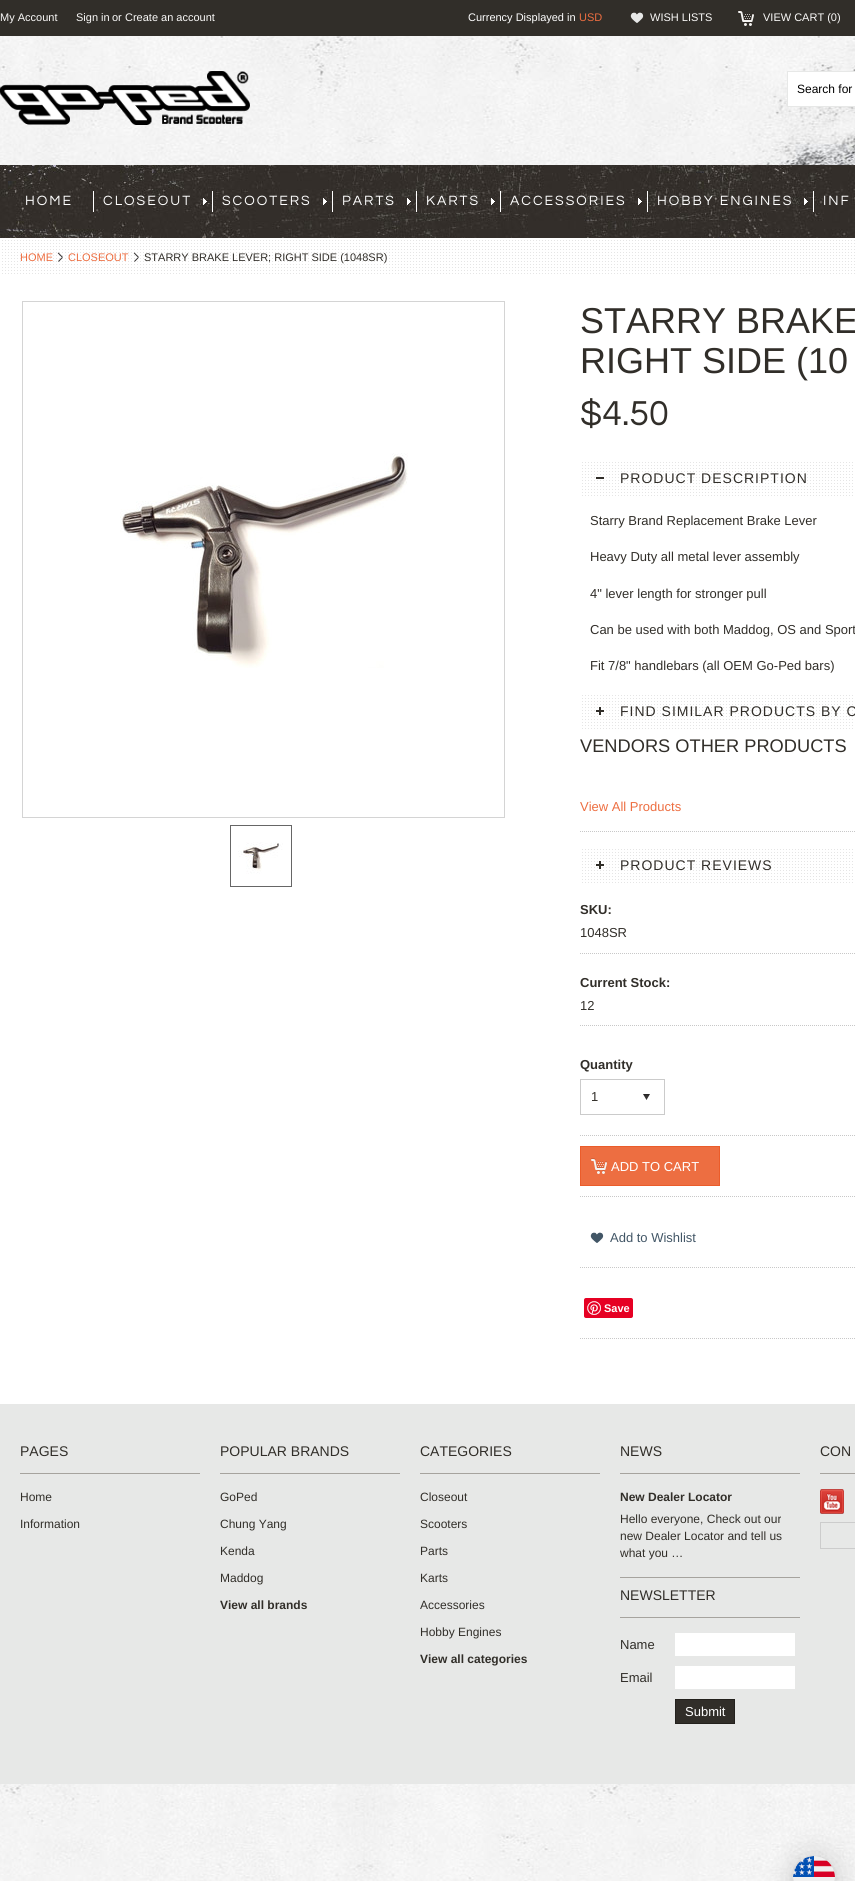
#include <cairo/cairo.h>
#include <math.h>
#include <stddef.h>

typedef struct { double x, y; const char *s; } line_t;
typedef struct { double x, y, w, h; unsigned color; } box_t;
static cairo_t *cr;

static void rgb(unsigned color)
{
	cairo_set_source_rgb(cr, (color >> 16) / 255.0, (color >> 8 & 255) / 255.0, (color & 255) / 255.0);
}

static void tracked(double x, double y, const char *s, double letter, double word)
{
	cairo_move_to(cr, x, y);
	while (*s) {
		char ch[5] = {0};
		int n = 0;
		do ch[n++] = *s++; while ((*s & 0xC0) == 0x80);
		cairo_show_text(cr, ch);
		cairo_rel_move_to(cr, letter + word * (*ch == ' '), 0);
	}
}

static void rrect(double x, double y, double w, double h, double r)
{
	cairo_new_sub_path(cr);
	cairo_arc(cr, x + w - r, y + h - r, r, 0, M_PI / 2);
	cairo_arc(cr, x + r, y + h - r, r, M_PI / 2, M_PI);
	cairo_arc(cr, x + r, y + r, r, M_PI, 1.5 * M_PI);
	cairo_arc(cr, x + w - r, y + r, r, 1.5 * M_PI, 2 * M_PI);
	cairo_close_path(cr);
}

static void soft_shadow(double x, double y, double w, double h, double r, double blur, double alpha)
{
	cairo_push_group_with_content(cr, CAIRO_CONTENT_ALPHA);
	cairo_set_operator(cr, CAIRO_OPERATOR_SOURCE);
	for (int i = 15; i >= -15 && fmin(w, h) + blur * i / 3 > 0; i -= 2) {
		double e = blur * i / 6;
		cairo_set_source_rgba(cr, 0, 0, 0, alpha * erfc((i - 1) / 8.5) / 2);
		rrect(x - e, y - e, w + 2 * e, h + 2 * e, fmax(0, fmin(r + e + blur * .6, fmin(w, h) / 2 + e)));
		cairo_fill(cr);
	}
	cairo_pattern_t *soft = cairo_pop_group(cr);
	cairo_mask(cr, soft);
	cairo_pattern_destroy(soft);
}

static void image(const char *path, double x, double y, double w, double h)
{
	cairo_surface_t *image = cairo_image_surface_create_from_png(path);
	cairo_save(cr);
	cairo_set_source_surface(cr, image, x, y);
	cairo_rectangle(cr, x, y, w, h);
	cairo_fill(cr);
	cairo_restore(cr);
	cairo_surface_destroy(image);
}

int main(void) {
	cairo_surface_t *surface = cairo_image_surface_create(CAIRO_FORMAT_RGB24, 855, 1881);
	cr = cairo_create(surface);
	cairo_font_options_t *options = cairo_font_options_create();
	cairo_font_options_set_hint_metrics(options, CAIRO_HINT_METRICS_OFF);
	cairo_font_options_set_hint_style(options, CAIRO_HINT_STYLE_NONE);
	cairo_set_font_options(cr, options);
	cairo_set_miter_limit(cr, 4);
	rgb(0xffffff);
	cairo_paint(cr);
	image("img/1.png", 0, 1784, 855, 97);
	image("img/2.png", 0, 36, 855, 129);
	rgb(0x312e29);
	cairo_rectangle(cr, 0, 0, 855, 36);
	cairo_fill(cr);
	image("img/3.png", 630, 12, 14, 11);
	image("img/4.png", 738, 10, 16, 16);
	image("img/5.png", 0, 71, 250, 54);
	rgb(0xffffff);
	cairo_rectangle(cr, 787.5, 71.5, 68, 35);
	cairo_fill_preserve(cr);
	rgb(0xe7e8e7);
	cairo_set_line_width(cr, 1);
	cairo_stroke(cr);
	image("img/6.png", 0, 165, 855, 73);
	rgb(0xffffff);
	cairo_rectangle(cr, 93, 191, 1, 21);
	cairo_fill(cr);
	image("img/7.png", 203, 198, 4, 7);
	cairo_rectangle(cr, 212, 191, 1, 21);
	cairo_fill(cr);
	image("img/8.png", 323, 198, 4, 7);
	cairo_rectangle(cr, 332, 191, 1, 21);
	cairo_fill(cr);
	image("img/9.png", 407, 198, 4, 7);
	cairo_rectangle(cr, 416, 191, 1, 21);
	cairo_fill(cr);
	image("img/10.png", 491, 198, 4, 7);
	cairo_rectangle(cr, 500, 191, 1, 21);
	cairo_fill(cr);
	image("img/11.png", 638, 198, 4, 7);
	cairo_rectangle(cr, 647, 191, 1, 21);
	cairo_fill(cr);
	image("img/12.png", 804, 198, 4, 7);
	cairo_rectangle(cr, 813, 191, 1, 21);
	cairo_fill(cr);
	image("img/13.png", 2, 240, 853, 34);
	image("img/14.png", 57, 252, 6, 10);
	image("img/15.png", 133, 252, 6, 10);
	cairo_rectangle(cr, 22.5, 301.5, 482, 516);
	rgb(0xd4d4d4);
	cairo_stroke(cr);
	image("img/16.png", 120, 453, 288, 215);
	cairo_rectangle(cr, 230.5, 825.5, 61, 61);
	rgb(0x666666);
	cairo_stroke(cr);
	image("img/17.png", 238, 842, 45, 32);
	image("img/18.png", 582, 462, 271, 34);
	rgb(0x312e29);
	cairo_rectangle(cr, 596, 477, 8, 2);
	cairo_fill(cr);
	image("img/18.png", 582, 695, 271, 34);
	image("img/19.png", 596, 707, 8, 8);
	cairo_new_path(cr);
	cairo_move_to(cr, 580, 831.5);
	cairo_line_to(cr, 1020, 831.5);
	rgb(0xc8c8c8);
	cairo_set_dash(cr, (double[]){1, 1}, 2, 0);
	cairo_stroke(cr);
	image("img/18.png", 582, 849, 271, 34);
	image("img/19.png", 596, 861, 8, 8);
	cairo_new_path(cr);
	cairo_move_to(cr, 580, 953.5);
	cairo_line_to(cr, 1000, 953.5);
	cairo_stroke(cr);
	cairo_new_path(cr);
	cairo_move_to(cr, 580, 1025.5);
	cairo_line_to(cr, 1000, 1025.5);
	cairo_stroke(cr);
	cairo_new_path(cr);
	cairo_move_to(cr, 580, 1196.5);
	cairo_line_to(cr, 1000, 1196.5);
	cairo_stroke(cr);
	cairo_new_path(cr);
	cairo_move_to(cr, 580, 1135.5);
	cairo_line_to(cr, 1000, 1135.5);
	cairo_stroke(cr);
	cairo_rectangle(cr, 580.5, 1079.5, 84, 35);
	rgb(0xcbcbcb);
	cairo_set_dash(cr, NULL, 0, 0);
	cairo_stroke(cr);
	image("img/20.png", 643, 1094, 7, 6);
	rgb(0xed6e41);
	cairo_rectangle(cr, 581, 1147, 138, 38);
	cairo_fill(cr);
	image("img/21.png", 591, 1158, 16, 16);
	cairo_rectangle(cr, 580.5, 1146.5, 139, 39);
	rgb(0xeb5c2a);
	cairo_stroke(cr);
	cairo_new_path(cr);
	cairo_move_to(cr, 580, 1267.5);
	cairo_line_to(cr, 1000, 1267.5);
	rgb(0xc8c8c8);
	cairo_set_dash(cr, (double[]){1, 1}, 2, 0);
	cairo_stroke(cr);
	image("img/22.png", 590, 1232, 14, 11);
	cairo_new_path(cr);
	cairo_move_to(cr, 580, 1338.5);
	cairo_line_to(cr, 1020, 1338.5);
	cairo_stroke(cr);
	rgb(0xe60023);
	rrect(584, 1298, 49, 20, 2);
	cairo_fill(cr);
	image("img/23.png", 587, 1301, 14, 14);
	{
		static const box_t items[] = {
			{0, 1404, 855, 380, 0xe7e8e7},
			{20, 1473, 180, 1, 0xa6a39e},
			{220, 1473, 180, 1, 0xa6a39e},
			{420, 1473, 180, 1, 0xa6a39e},
			{620, 1473, 180, 1, 0xa6a39e},
			{620, 1577, 180, 1, 0xa6a39e},
			{620, 1617, 180, 1, 0xa6a39e},
			{675, 1633, 120, 23, 0xffffff},
			{675, 1666, 120, 23, 0xffffff},
		};
		for (size_t i = 0; i < sizeof items / sizeof *items; i++) {
			rgb(items[i].color);
			cairo_rectangle(cr, items[i].x, items[i].y, items[i].w, items[i].h);
			cairo_fill(cr);
		}
	}
	rgb(0x312e29);
	cairo_rectangle(cr, 675.5, 1699.5, 59, 24);
	cairo_fill_preserve(cr);
	rgb(0x23211d);
	cairo_set_dash(cr, NULL, 0, 0);
	cairo_stroke(cr);
	rgb(0xa6a39e);
	cairo_rectangle(cr, 820, 1473, 35, 1);
	cairo_fill(cr);
	image("img/24.png", 820, 1489, 24, 25);
	{
		static const box_t items[] = {
			{820, 1522, 35, 1, 0xcccccc},
			{820, 1548, 35, 1, 0xcccccc},
			{820, 1522, 1, 27, 0xcccccc},
		};
		for (size_t i = 0; i < sizeof items / sizeof *items; i++) {
			rgb(items[i].color);
			cairo_rectangle(cr, items[i].x, items[i].y, items[i].w, items[i].h);
			cairo_fill(cr);
		}
	}
	rgb(0x000000);
	soft_shadow(793, 1858, 42, 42, 21, 16, 0.16);
	soft_shadow(793, 1857, 42, 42, 21, 3, 0.06);
	image("img/25.png", 793, 1856, 42, 25);
	cairo_select_font_face(cr, "Liberation Sans", CAIRO_FONT_SLANT_NORMAL, CAIRO_FONT_WEIGHT_NORMAL);
	cairo_set_font_size(cr, 11);
	rgb(0xfaf9f8);
	cairo_move_to(cr, 0, 21);
	cairo_show_text(cr, "My Account");
	cairo_move_to(cr, 76, 21);
	cairo_show_text(cr, "Sign in");
	rgb(0xffffff);
	cairo_move_to(cr, 112, 21);
	cairo_show_text(cr, "or");
	rgb(0xfaf9f8);
	cairo_move_to(cr, 125, 21);
	cairo_show_text(cr, "Create an account");
	rgb(0xffffff);
	cairo_move_to(cr, 468, 21);
	cairo_show_text(cr, "Currency Displayed in");
	rgb(0xed6e41);
	cairo_move_to(cr, 579, 21);
	cairo_show_text(cr, "USD");
	rgb(0xfaf9f8);
	cairo_move_to(cr, 650, 21);
	cairo_show_text(cr, "WISH LISTS");
	cairo_move_to(cr, 763, 21);
	cairo_show_text(cr, "VIEW CART (0)");
	cairo_set_font_size(cr, 12);
	rgb(0x000000);
	cairo_move_to(cr, 797, 93);
	cairo_show_text(cr, "Search for");
	cairo_select_font_face(cr, "Questrial", CAIRO_FONT_SLANT_NORMAL, CAIRO_FONT_WEIGHT_NORMAL);
	cairo_set_font_size(cr, 14);
	rgb(0xffffff);
	{
		static const line_t items[] = {
			{25, 205, "HOME"},
			{103, 205, "CLOSEOUT"},
			{222, 205, "SCOOTERS"},
			{342, 205, "PARTS"},
			{426, 205, "KARTS"},
			{510, 205, "ACCESSORIES"},
			{657, 205, "HOBBY ENGINES"},
			{823, 205, "INF"},
		};
		for (size_t i = 0; i < sizeof items / sizeof *items; i++) {
			tracked(items[i].x, items[i].y, items[i].s, 2, 0);
		}
	}
	cairo_select_font_face(cr, "Liberation Sans", CAIRO_FONT_SLANT_NORMAL, CAIRO_FONT_WEIGHT_NORMAL);
	cairo_set_font_size(cr, 11);
	rgb(0xed6e41);
	cairo_move_to(cr, 20, 261);
	cairo_show_text(cr, "HOME");
	cairo_move_to(cr, 68, 261);
	cairo_show_text(cr, "CLOSEOUT");
	rgb(0x312e29);
	cairo_move_to(cr, 144, 261);
	cairo_show_text(cr, "STARRY BRAKE LEVER; RIGHT SIDE (1048SR)");
	cairo_set_font_size(cr, 36);
	cairo_move_to(cr, 580, 333);
	cairo_show_text(cr, "STARRY BRAKE");
	cairo_move_to(cr, 580, 373);
	cairo_show_text(cr, "RIGHT SIDE (10");
	cairo_select_font_face(cr, "Questrial", CAIRO_FONT_SLANT_NORMAL, CAIRO_FONT_WEIGHT_NORMAL);
	cairo_move_to(cr, 580, 425);
	cairo_show_text(cr, "$4.50");
	cairo_select_font_face(cr, "Liberation Sans", CAIRO_FONT_SLANT_NORMAL, CAIRO_FONT_WEIGHT_NORMAL);
	cairo_set_font_size(cr, 14);
	tracked(620, 483, "PRODUCT DESCRIPTION", 1, 0);
	cairo_set_font_size(cr, 13);
	{
		static const line_t items[] = {
			{590, 525, "Starry Brand Replacement Brake Lever"},
			{590, 561, "Heavy Duty all metal lever assembly"},
			{590, 598, "4\" lever length for stronger pull"},
			{590, 634, "Can be used with both Maddog, OS and Sport"},
			{590, 670, "Fit 7/8\" handlebars (all OEM Go-Ped bars)"},
		};
		for (size_t i = 0; i < sizeof items / sizeof *items; i++) {
			cairo_move_to(cr, items[i].x, items[i].y);
			cairo_show_text(cr, items[i].s);
		}
	}
	cairo_set_font_size(cr, 14);
	tracked(620, 716, "FIND SIMILAR PRODUCTS BY C", 1, 0);
	cairo_set_font_size(cr, 18.25);
	cairo_move_to(cr, 580, 752);
	cairo_show_text(cr, "VENDORS OTHER PRODUCTS");
	cairo_set_font_size(cr, 13);
	rgb(0xed6e41);
	cairo_move_to(cr, 580, 811);
	cairo_show_text(cr, "View All Products");
	cairo_set_font_size(cr, 14);
	rgb(0x312e29);
	tracked(620, 870, "PRODUCT REVIEWS", 1, 0);
	cairo_select_font_face(cr, "Liberation Sans", CAIRO_FONT_SLANT_NORMAL, CAIRO_FONT_WEIGHT_BOLD);
	cairo_set_font_size(cr, 13);
	cairo_move_to(cr, 580, 914);
	cairo_show_text(cr, "SKU:");
	cairo_select_font_face(cr, "Liberation Sans", CAIRO_FONT_SLANT_NORMAL, CAIRO_FONT_WEIGHT_NORMAL);
	cairo_move_to(cr, 580, 937);
	cairo_show_text(cr, "1048SR");
	cairo_select_font_face(cr, "Liberation Sans", CAIRO_FONT_SLANT_NORMAL, CAIRO_FONT_WEIGHT_BOLD);
	cairo_move_to(cr, 580, 987);
	cairo_show_text(cr, "Current Stock:");
	cairo_select_font_face(cr, "Liberation Sans", CAIRO_FONT_SLANT_NORMAL, CAIRO_FONT_WEIGHT_NORMAL);
	cairo_move_to(cr, 580, 1010);
	cairo_show_text(cr, "12");
	cairo_select_font_face(cr, "Liberation Sans", CAIRO_FONT_SLANT_NORMAL, CAIRO_FONT_WEIGHT_BOLD);
	cairo_move_to(cr, 580, 1069);
	cairo_show_text(cr, "Quantity");
	cairo_select_font_face(cr, "Liberation Sans", CAIRO_FONT_SLANT_NORMAL, CAIRO_FONT_WEIGHT_NORMAL);
	cairo_move_to(cr, 591, 1101);
	cairo_show_text(cr, "1");
	rgb(0xffffff);
	cairo_move_to(cr, 611, 1171);
	cairo_show_text(cr, "ADD TO CART");
	rgb(0x425666);
	cairo_move_to(cr, 610, 1242);
	cairo_show_text(cr, "Add to Wishlist");
	cairo_select_font_face(cr, "Liberation Sans", CAIRO_FONT_SLANT_NORMAL, CAIRO_FONT_WEIGHT_BOLD);
	cairo_set_font_size(cr, 11);
	rgb(0xffffff);
	cairo_move_to(cr, 604, 1312);
	cairo_show_text(cr, "Save");
	cairo_select_font_face(cr, "Liberation Sans", CAIRO_FONT_SLANT_NORMAL, CAIRO_FONT_WEIGHT_NORMAL);
	cairo_set_font_size(cr, 14);
	rgb(0x312e29);
	cairo_move_to(cr, 20, 1456);
	cairo_show_text(cr, "PAGES");
	cairo_set_font_size(cr, 12);
	cairo_move_to(cr, 20, 1501);
	cairo_show_text(cr, "Home");
	cairo_move_to(cr, 20, 1528);
	cairo_show_text(cr, "Information");
	cairo_set_font_size(cr, 14);
	cairo_move_to(cr, 220, 1456);
	cairo_show_text(cr, "POPULAR BRANDS");
	cairo_set_font_size(cr, 12);
	{
		static const line_t items[] = {
			{220, 1501, "GoPed"},
			{220, 1528, "Chung Yang"},
			{220, 1555, "Kenda"},
			{220, 1582, "Maddog"},
		};
		for (size_t i = 0; i < sizeof items / sizeof *items; i++) {
			cairo_move_to(cr, items[i].x, items[i].y);
			cairo_show_text(cr, items[i].s);
		}
	}
	cairo_select_font_face(cr, "Liberation Sans", CAIRO_FONT_SLANT_NORMAL, CAIRO_FONT_WEIGHT_BOLD);
	cairo_move_to(cr, 220, 1609);
	cairo_show_text(cr, "View all brands");
	cairo_select_font_face(cr, "Liberation Sans", CAIRO_FONT_SLANT_NORMAL, CAIRO_FONT_WEIGHT_NORMAL);
	cairo_set_font_size(cr, 14);
	cairo_move_to(cr, 420, 1456);
	cairo_show_text(cr, "CATEGORIES");
	cairo_set_font_size(cr, 12);
	{
		static const line_t items[] = {
			{420, 1501, "Closeout"},
			{420, 1528, "Scooters"},
			{420, 1555, "Parts"},
			{420, 1582, "Karts"},
			{420, 1609, "Accessories"},
			{420, 1636, "Hobby Engines"},
		};
		for (size_t i = 0; i < sizeof items / sizeof *items; i++) {
			cairo_move_to(cr, items[i].x, items[i].y);
			cairo_show_text(cr, items[i].s);
		}
	}
	cairo_select_font_face(cr, "Liberation Sans", CAIRO_FONT_SLANT_NORMAL, CAIRO_FONT_WEIGHT_BOLD);
	cairo_move_to(cr, 420, 1663);
	cairo_show_text(cr, "View all categories");
	cairo_select_font_face(cr, "Liberation Sans", CAIRO_FONT_SLANT_NORMAL, CAIRO_FONT_WEIGHT_NORMAL);
	cairo_set_font_size(cr, 14);
	cairo_move_to(cr, 620, 1456);
	cairo_show_text(cr, "NEWS");
	cairo_select_font_face(cr, "Liberation Sans", CAIRO_FONT_SLANT_NORMAL, CAIRO_FONT_WEIGHT_BOLD);
	cairo_set_font_size(cr, 12);
	cairo_move_to(cr, 620, 1501);
	cairo_show_text(cr, "New Dealer Locator");
	cairo_select_font_face(cr, "Liberation Sans", CAIRO_FONT_SLANT_NORMAL, CAIRO_FONT_WEIGHT_NORMAL);
	{
		static const line_t items[] = {
			{620, 1523, "Hello everyone, Check out our"},
			{620, 1540, "new Dealer Locator and tell us"},
			{620, 1557, "what you …"},
		};
		for (size_t i = 0; i < sizeof items / sizeof *items; i++) {
			cairo_move_to(cr, items[i].x, items[i].y);
			cairo_show_text(cr, items[i].s);
		}
	}
	cairo_set_font_size(cr, 14);
	cairo_move_to(cr, 620, 1600);
	cairo_show_text(cr, "NEWSLETTER");
	cairo_set_font_size(cr, 13);
	cairo_move_to(cr, 620, 1649);
	cairo_show_text(cr, "Name");
	cairo_move_to(cr, 620, 1682);
	cairo_show_text(cr, "Email");
	rgb(0xffffff);
	cairo_move_to(cr, 685, 1716);
	cairo_show_text(cr, "Submit");
	cairo_set_font_size(cr, 14);
	rgb(0x312e29);
	cairo_move_to(cr, 820, 1456);
	cairo_show_text(cr, "CON");
	cairo_surface_write_to_png(surface, "page.png");
	cairo_font_options_destroy(options);
	cairo_destroy(cr);
	cairo_surface_destroy(surface);
	return 0;
}
